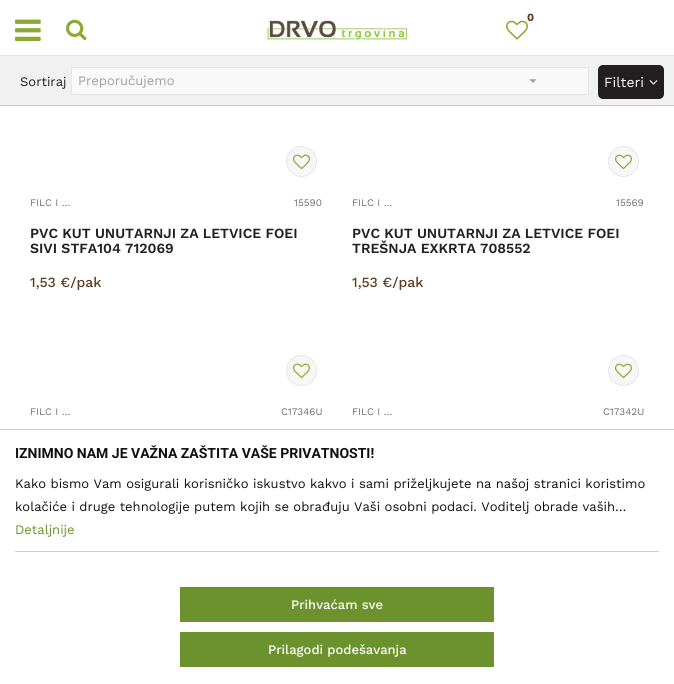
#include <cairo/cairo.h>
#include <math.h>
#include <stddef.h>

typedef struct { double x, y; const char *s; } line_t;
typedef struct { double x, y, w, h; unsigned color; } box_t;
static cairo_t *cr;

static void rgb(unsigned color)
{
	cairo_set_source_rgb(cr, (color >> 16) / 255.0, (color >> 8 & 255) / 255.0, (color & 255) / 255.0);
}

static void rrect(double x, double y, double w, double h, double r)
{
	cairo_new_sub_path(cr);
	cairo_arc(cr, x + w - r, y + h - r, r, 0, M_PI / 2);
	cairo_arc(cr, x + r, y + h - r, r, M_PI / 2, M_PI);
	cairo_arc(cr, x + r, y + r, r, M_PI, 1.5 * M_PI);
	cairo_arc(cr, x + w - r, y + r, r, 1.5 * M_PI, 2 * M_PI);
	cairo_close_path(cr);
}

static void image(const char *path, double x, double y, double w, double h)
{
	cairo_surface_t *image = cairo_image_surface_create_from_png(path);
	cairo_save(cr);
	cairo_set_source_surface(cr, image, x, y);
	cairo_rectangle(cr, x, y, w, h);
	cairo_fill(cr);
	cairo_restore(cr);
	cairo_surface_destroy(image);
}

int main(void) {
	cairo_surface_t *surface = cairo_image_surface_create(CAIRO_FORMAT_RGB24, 674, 684);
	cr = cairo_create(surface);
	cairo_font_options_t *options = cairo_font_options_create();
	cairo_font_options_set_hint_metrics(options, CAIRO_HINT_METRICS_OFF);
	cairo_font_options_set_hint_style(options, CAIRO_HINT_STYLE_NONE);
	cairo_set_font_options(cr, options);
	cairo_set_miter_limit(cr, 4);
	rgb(0xffffff);
	cairo_paint(cr);
	rgb(0xe5e5e4);
	cairo_rectangle(cr, 0, 55, 674, 1);
	cairo_fill(cr);
	image("img/1.png", 506, 20, 22, 20);
	image("img/2.png", 267, 20, 140, 20);
	image("img/3.png", 15, 19, 26, 22);
	image("img/4.png", 66, 19, 21, 22);
	rgb(0xf1f1f1);
	cairo_rectangle(cr, 0, 56, 674, 49);
	cairo_fill(cr);
	rgb(0xcbcbcb);
	cairo_rectangle(cr, 0, 105, 674, 1);
	cairo_fill(cr);
	rgb(0xf9f9f9);
	rrect(71, 67, 518, 28, 2);
	cairo_fill(cr);
	image("img/5.png", 529, 79, 8, 4);
	rrect(71.5, 67.5, 517, 27, 1.5);
	rgb(0xe5e5e4);
	cairo_set_line_width(cr, 1);
	cairo_stroke(cr);
	rgb(0x231f20);
	rrect(598, 65, 66, 34, 5);
	cairo_fill(cr);
	image("img/6.png", 649, 80, 9, 5);
	rgb(0xf7f7f7);
	cairo_arc(cr, 301.5, 161.5, 15, 0, 2 * M_PI);
	cairo_fill_preserve(cr);
	rgb(0xe6e6e6);
	cairo_stroke(cr);
	image("img/7.png", 293, 154, 17, 16);
	rgb(0xf7f7f7);
	cairo_arc(cr, 623.5, 161.5, 15, 0, 2 * M_PI);
	cairo_fill_preserve(cr);
	rgb(0xe6e6e6);
	cairo_stroke(cr);
	image("img/7.png", 615, 154, 17, 16);
	rgb(0xf7f7f7);
	cairo_arc(cr, 301.5, 370.5, 15, 0, 2 * M_PI);
	cairo_fill_preserve(cr);
	rgb(0xe6e6e6);
	cairo_stroke(cr);
	image("img/7.png", 293, 363, 17, 16);
	rgb(0xf7f7f7);
	cairo_arc(cr, 623.5, 370.5, 15, 0, 2 * M_PI);
	cairo_fill_preserve(cr);
	rgb(0xe6e6e6);
	cairo_stroke(cr);
	image("img/7.png", 615, 363, 17, 16);
	{
		static const box_t items[] = {
			{0, 429, 674, 1, 0xcecece},
			{15, 551, 644, 1, 0xcecece},
			{180, 587, 314, 35, 0x6c922d},
			{180, 632, 314, 35, 0x6c922d},
		};
		for (size_t i = 0; i < sizeof items / sizeof *items; i++) {
			rgb(items[i].color);
			cairo_rectangle(cr, items[i].x, items[i].y, items[i].w, items[i].h);
			cairo_fill(cr);
		}
	}
	cairo_select_font_face(cr, "Work Sans", CAIRO_FONT_SLANT_NORMAL, CAIRO_FONT_WEIGHT_BOLD);
	cairo_set_font_size(cr, 11);
	rgb(0x603d1d);
	cairo_move_to(cr, 527, 21);
	cairo_show_text(cr, "0");
	cairo_select_font_face(cr, "Work Sans", CAIRO_FONT_SLANT_NORMAL, CAIRO_FONT_WEIGHT_NORMAL);
	cairo_set_font_size(cr, 13);
	rgb(0x231f20);
	cairo_move_to(cr, 20, 86);
	cairo_show_text(cr, "Sortiraj");
	rgb(0x9ea1a1);
	cairo_move_to(cr, 78, 85);
	cairo_show_text(cr, "Preporučujemo");
	cairo_set_font_size(cr, 14);
	rgb(0xffffff);
	cairo_move_to(cr, 604, 87);
	cairo_show_text(cr, "Filteri");
	cairo_set_font_size(cr, 10);
	rgb(0x6d6e70);
	cairo_move_to(cr, 30, 206);
	cairo_show_text(cr, "FILC I …");
	cairo_move_to(cr, 294, 206);
	cairo_show_text(cr, "15590");
	cairo_select_font_face(cr, "Work Sans SemiBold", CAIRO_FONT_SLANT_NORMAL, CAIRO_FONT_WEIGHT_NORMAL);
	cairo_set_font_size(cr, 14);
	rgb(0x231f20);
	cairo_move_to(cr, 30, 238);
	cairo_show_text(cr, "PVC KUT UNUTARNJI ZA LETVICE FOEI");
	cairo_move_to(cr, 30, 253);
	cairo_show_text(cr, "SIVI STFA104 712069");
	cairo_select_font_face(cr, "Work Sans Medium", CAIRO_FONT_SLANT_NORMAL, CAIRO_FONT_WEIGHT_NORMAL);
	rgb(0x603d1d);
	cairo_move_to(cr, 30, 287);
	cairo_show_text(cr, "1,53 €/pak");
	cairo_select_font_face(cr, "Work Sans", CAIRO_FONT_SLANT_NORMAL, CAIRO_FONT_WEIGHT_NORMAL);
	cairo_set_font_size(cr, 10);
	rgb(0x6d6e70);
	cairo_move_to(cr, 352, 206);
	cairo_show_text(cr, "FILC I …");
	cairo_move_to(cr, 616, 206);
	cairo_show_text(cr, "15569");
	cairo_select_font_face(cr, "Work Sans SemiBold", CAIRO_FONT_SLANT_NORMAL, CAIRO_FONT_WEIGHT_NORMAL);
	cairo_set_font_size(cr, 14);
	rgb(0x231f20);
	cairo_move_to(cr, 352, 238);
	cairo_show_text(cr, "PVC KUT UNUTARNJI ZA LETVICE FOEI");
	cairo_move_to(cr, 352, 253);
	cairo_show_text(cr, "TREŠNJA EXKRTA 708552");
	cairo_select_font_face(cr, "Work Sans Medium", CAIRO_FONT_SLANT_NORMAL, CAIRO_FONT_WEIGHT_NORMAL);
	rgb(0x603d1d);
	cairo_move_to(cr, 352, 287);
	cairo_show_text(cr, "1,53 €/pak");
	cairo_select_font_face(cr, "Work Sans", CAIRO_FONT_SLANT_NORMAL, CAIRO_FONT_WEIGHT_NORMAL);
	cairo_set_font_size(cr, 10);
	rgb(0x6d6e70);
	{
		static const line_t items[] = {
			{30, 415, "FILC I …"},
			{281, 415, "C17346U"},
			{352, 415, "FILC I …"},
			{603, 415, "C17342U"},
		};
		for (size_t i = 0; i < sizeof items / sizeof *items; i++) {
			cairo_move_to(cr, items[i].x, items[i].y);
			cairo_show_text(cr, items[i].s);
		}
	}
	cairo_select_font_face(cr, "Roboto", CAIRO_FONT_SLANT_NORMAL, CAIRO_FONT_WEIGHT_BOLD);
	cairo_set_font_size(cr, 14);
	rgb(0x111010);
	cairo_move_to(cr, 15, 458);
	cairo_show_text(cr, "IZNIMNO NAM JE VAŽNA ZAŠTITA VAŠE PRIVATNOSTI!");
	cairo_select_font_face(cr, "Work Sans", CAIRO_FONT_SLANT_NORMAL, CAIRO_FONT_WEIGHT_NORMAL);
	cairo_set_font_size(cr, 13);
	cairo_move_to(cr, 15, 488);
	cairo_show_text(cr, "Kako bismo Vam osigurali korisničko iskustvo kakvo i sami priželjkujete na našoj stranici koristimo");
	cairo_move_to(cr, 15, 511);
	cairo_show_text(cr, "kolačiće i druge tehnologije putem kojih se obrađuju Vaši osobni podaci. Voditelj obrade vaših…");
	rgb(0x6c922d);
	cairo_move_to(cr, 15, 534);
	cairo_show_text(cr, "Detaljnije");
	cairo_select_font_face(cr, "Work Sans Medium", CAIRO_FONT_SLANT_NORMAL, CAIRO_FONT_WEIGHT_NORMAL);
	rgb(0xffffff);
	cairo_move_to(cr, 291, 609);
	cairo_show_text(cr, "Prihvaćam sve");
	cairo_move_to(cr, 268, 654);
	cairo_show_text(cr, "Prilagodi podešavanja");
	cairo_surface_write_to_png(surface, "page.png");
	cairo_font_options_destroy(options);
	cairo_destroy(cr);
	cairo_surface_destroy(surface);
	return 0;
}
